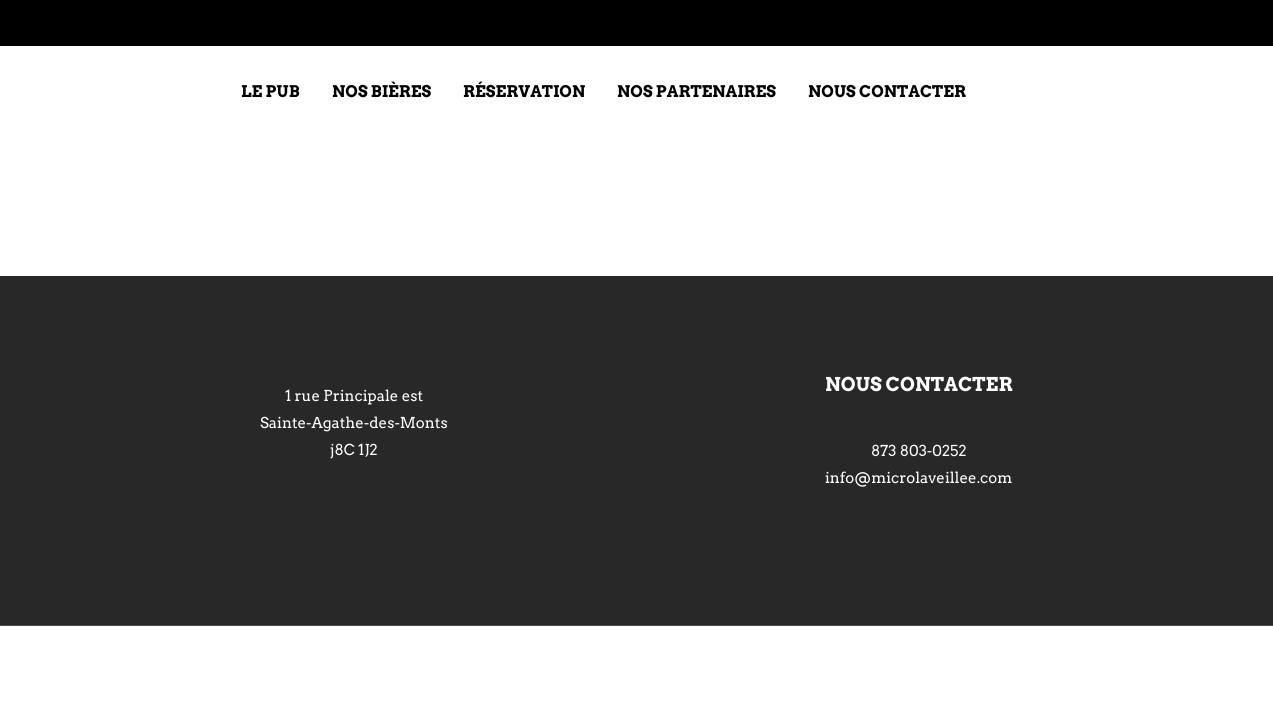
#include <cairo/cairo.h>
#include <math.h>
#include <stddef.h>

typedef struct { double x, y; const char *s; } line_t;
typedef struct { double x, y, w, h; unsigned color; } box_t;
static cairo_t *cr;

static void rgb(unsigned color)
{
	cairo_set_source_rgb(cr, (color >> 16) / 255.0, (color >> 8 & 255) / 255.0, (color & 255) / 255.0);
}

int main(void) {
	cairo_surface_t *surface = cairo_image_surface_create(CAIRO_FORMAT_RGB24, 1273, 724);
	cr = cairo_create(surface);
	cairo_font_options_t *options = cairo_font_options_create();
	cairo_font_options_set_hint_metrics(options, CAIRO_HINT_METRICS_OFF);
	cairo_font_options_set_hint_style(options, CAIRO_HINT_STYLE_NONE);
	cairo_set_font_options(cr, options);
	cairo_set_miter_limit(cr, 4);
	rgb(0xffffff);
	cairo_paint(cr);
	{
		static const box_t items[] = {
			{0, 0, 1273, 46, 0x000000},
			{0, 625, 1273, 1, 0x4d4d4d},
			{0, 276, 1273, 349, 0x282828},
		};
		for (size_t i = 0; i < sizeof items / sizeof *items; i++) {
			rgb(items[i].color);
			cairo_rectangle(cr, items[i].x, items[i].y, items[i].w, items[i].h);
			cairo_fill(cr);
		}
	}
	cairo_select_font_face(cr, "Arvo", CAIRO_FONT_SLANT_NORMAL, CAIRO_FONT_WEIGHT_BOLD);
	cairo_set_font_size(cr, 16);
	rgb(0x000000);
	{
		static const line_t items[] = {
			{241, 97, "LE PUB"},
			{332, 97, "NOS BIÈRES"},
			{463, 97, "RÉSERVATION"},
			{617, 97, "NOS PARTENAIRES"},
			{808, 97, "NOUS CONTACTER"},
		};
		for (size_t i = 0; i < sizeof items / sizeof *items; i++) {
			cairo_move_to(cr, items[i].x, items[i].y);
			cairo_show_text(cr, items[i].s);
		}
	}
	cairo_select_font_face(cr, "Arvo", CAIRO_FONT_SLANT_NORMAL, CAIRO_FONT_WEIGHT_NORMAL);
	cairo_set_font_size(cr, 15);
	rgb(0xffffff);
	{
		static const line_t items[] = {
			{285, 401, "1 rue Principale est"},
			{260, 428, "Sainte-Agathe-des-Monts"},
			{330, 455, "j8C 1J2"},
		};
		for (size_t i = 0; i < sizeof items / sizeof *items; i++) {
			cairo_move_to(cr, items[i].x, items[i].y);
			cairo_show_text(cr, items[i].s);
		}
	}
	cairo_select_font_face(cr, "Arvo", CAIRO_FONT_SLANT_NORMAL, CAIRO_FONT_WEIGHT_BOLD);
	cairo_set_font_size(cr, 19);
	cairo_move_to(cr, 825, 391);
	cairo_show_text(cr, "NOUS CONTACTER");
	cairo_select_font_face(cr, "Arvo", CAIRO_FONT_SLANT_NORMAL, CAIRO_FONT_WEIGHT_NORMAL);
	cairo_set_font_size(cr, 15);
	cairo_move_to(cr, 871, 456);
	cairo_show_text(cr, "873 803-0252");
	cairo_move_to(cr, 825, 483);
	cairo_show_text(cr, "info@microlaveillee.com");
	cairo_surface_write_to_png(surface, "page.png");
	cairo_font_options_destroy(options);
	cairo_destroy(cr);
	cairo_surface_destroy(surface);
	return 0;
}
